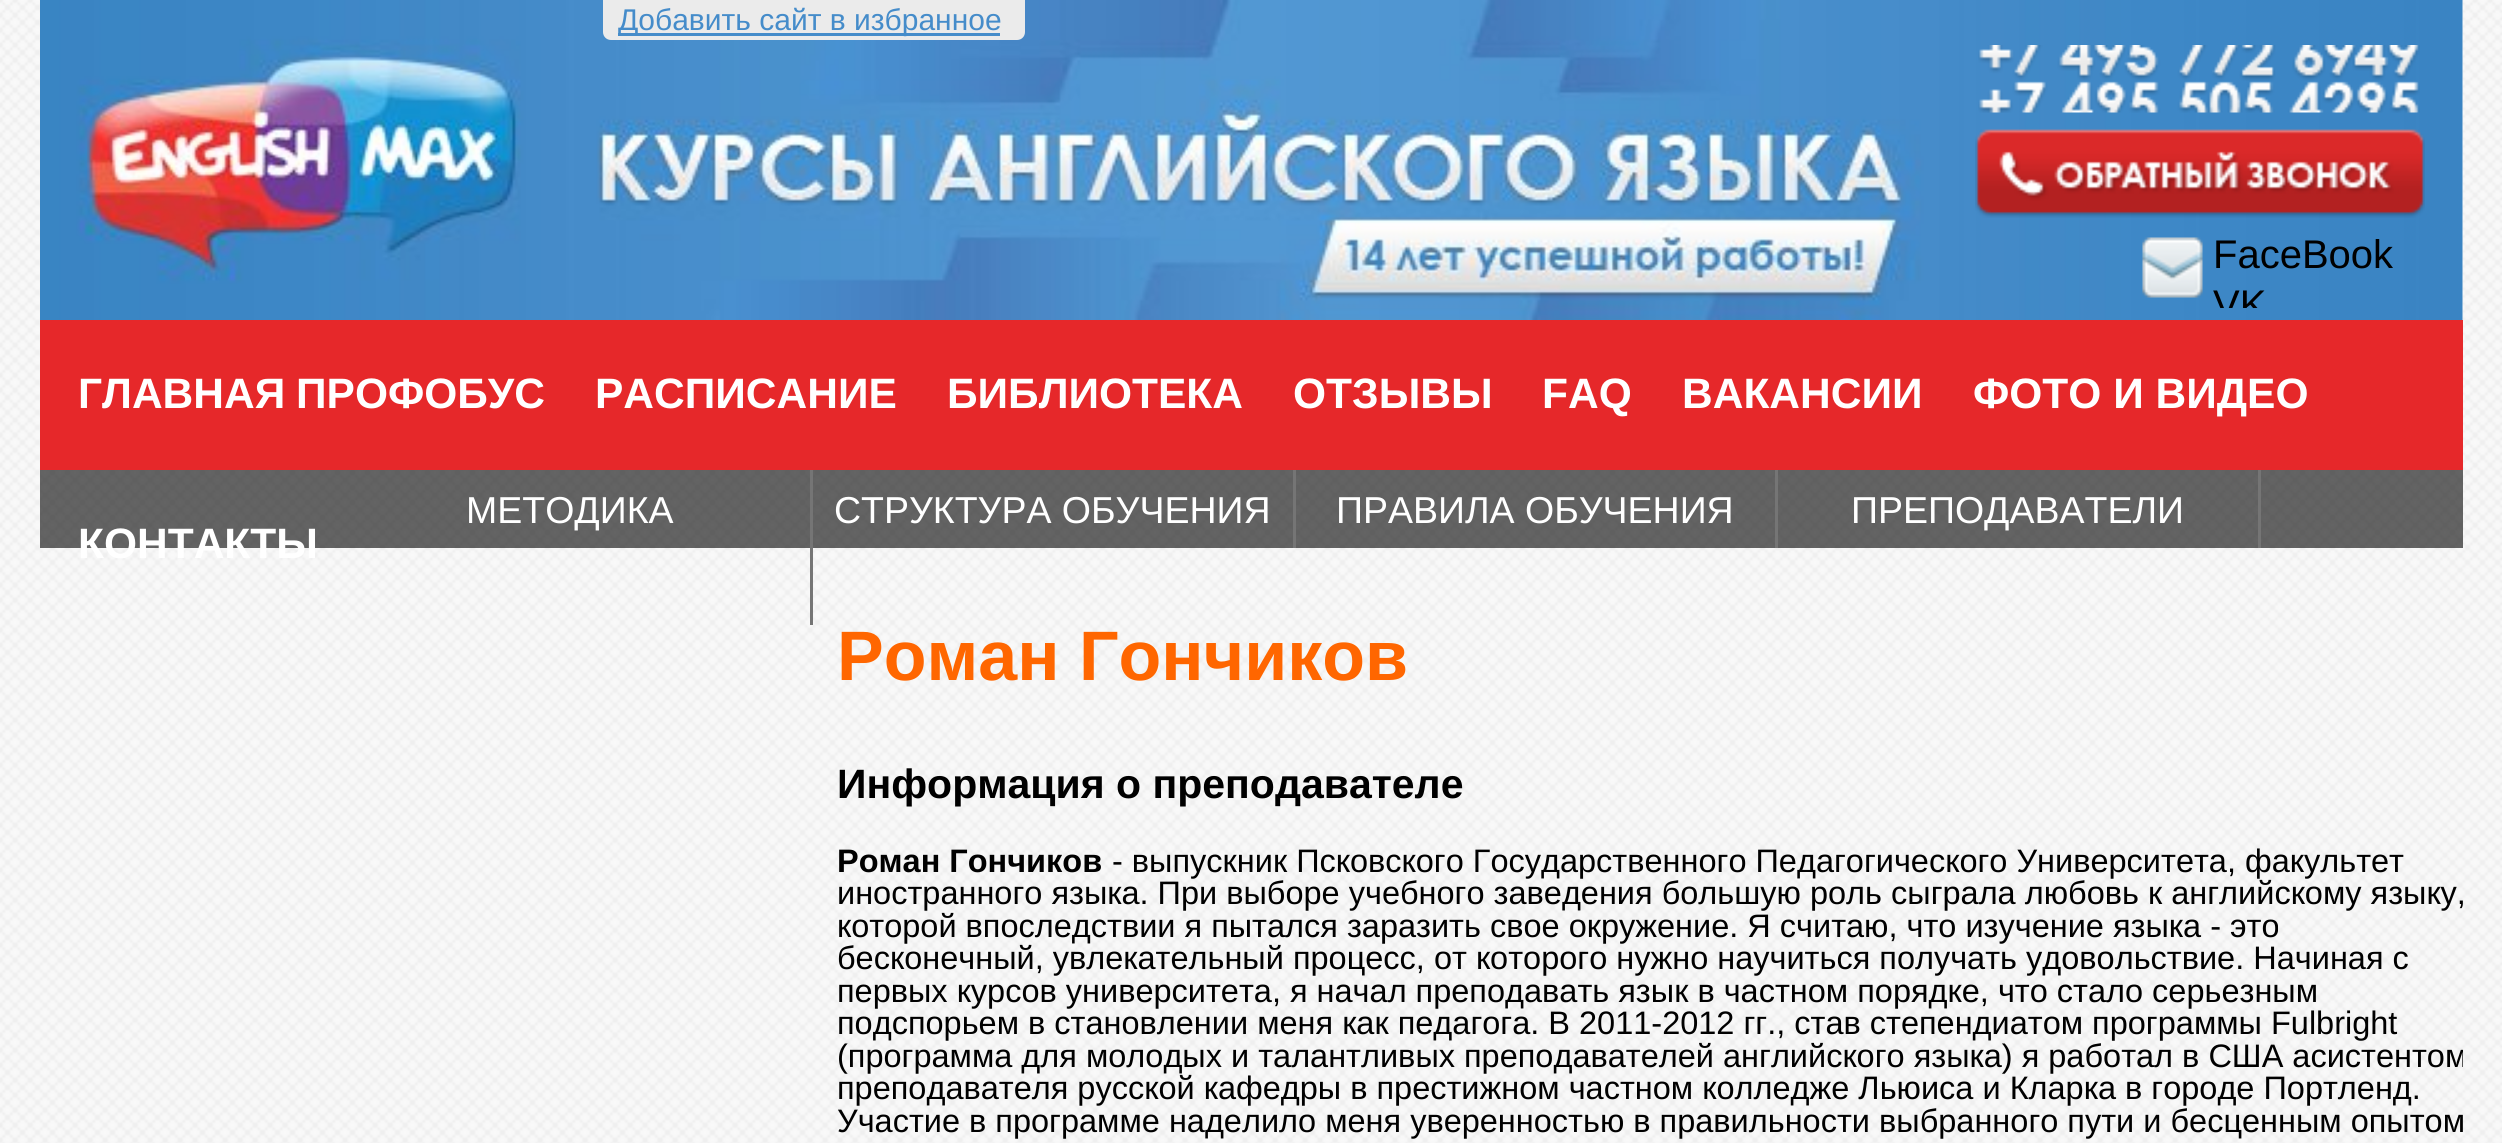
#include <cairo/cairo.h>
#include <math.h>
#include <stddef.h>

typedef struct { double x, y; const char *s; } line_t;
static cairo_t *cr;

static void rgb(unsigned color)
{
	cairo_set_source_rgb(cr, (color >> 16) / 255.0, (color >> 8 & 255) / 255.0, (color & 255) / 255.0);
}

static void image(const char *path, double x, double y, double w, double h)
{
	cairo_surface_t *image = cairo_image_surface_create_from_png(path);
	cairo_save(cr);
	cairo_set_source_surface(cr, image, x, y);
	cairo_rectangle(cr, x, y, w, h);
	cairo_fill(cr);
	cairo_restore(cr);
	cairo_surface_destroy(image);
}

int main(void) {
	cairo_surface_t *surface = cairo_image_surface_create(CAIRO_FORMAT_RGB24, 2502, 1143);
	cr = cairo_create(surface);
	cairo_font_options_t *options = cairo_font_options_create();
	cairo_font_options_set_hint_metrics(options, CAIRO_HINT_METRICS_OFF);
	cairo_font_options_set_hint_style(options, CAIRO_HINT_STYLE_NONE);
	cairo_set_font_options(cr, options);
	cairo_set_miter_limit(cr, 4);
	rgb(0xffffff);
	cairo_paint(cr);
	image("img/1.png", 0, 0, 2502, 1143);
	image("img/2.png", 40, 0, 2423, 320);
	rgb(0xebebeb);
	cairo_new_path(cr);
	cairo_move_to(cr, 603, 0);
	cairo_line_to(cr, 1025, 0);
	cairo_line_to(cr, 1025, 32);
	cairo_curve_to(cr, 1025, 36.5, 1021.5, 40, 1017, 40);
	cairo_line_to(cr, 611, 40);
	cairo_curve_to(cr, 606.5, 40, 603, 36.5, 603, 32);
	cairo_close_path(cr);
	cairo_fill(cr);
	rgb(0x458cca);
	cairo_rectangle(cr, 618, 33, 382, 3);
	cairo_fill(cr);
	image("img/3.png", 1978, 45, 442, 68);
	image("img/4.png", 1975, 129, 450, 89);
	image("img/5.png", 2142, 237, 61, 61);
	rgb(0xe6282a);
	cairo_rectangle(cr, 40, 320, 2423, 150);
	cairo_fill(cr);
	cairo_set_source_rgba(cr, 0, 0, 0, 0.6);
	cairo_rectangle(cr, 40, 470, 2423, 78);
	cairo_fill(cr);
	rgb(0x757575);
	cairo_rectangle(cr, 810, 470, 3, 155);
	cairo_fill(cr);
	cairo_rectangle(cr, 1293, 470, 3, 78);
	cairo_fill(cr);
	cairo_rectangle(cr, 1775, 470, 3, 78);
	cairo_fill(cr);
	cairo_rectangle(cr, 2258, 470, 3, 78);
	cairo_fill(cr);
	cairo_select_font_face(cr, "Liberation Sans", CAIRO_FONT_SLANT_NORMAL, CAIRO_FONT_WEIGHT_NORMAL);
	cairo_set_font_size(cr, 30);
	rgb(0x458cca);
	cairo_move_to(cr, 618, 30);
	cairo_show_text(cr, "Добавить сайт в избранное");
	cairo_set_font_size(cr, 40);
	rgb(0x000000);
	cairo_move_to(cr, 2213, 268);
	cairo_show_text(cr, "FaceBook");
	cairo_save(cr);
	cairo_rectangle(cr, 2138, 230, 287, 78);
	cairo_clip(cr);
	cairo_move_to(cr, 2213, 318);
	cairo_show_text(cr, "VK");
	cairo_restore(cr);
	cairo_select_font_face(cr, "Liberation Sans", CAIRO_FONT_SLANT_NORMAL, CAIRO_FONT_WEIGHT_BOLD);
	cairo_set_font_size(cr, 42.5);
	rgb(0xffffff);
	{
		static const line_t items[] = {
			{78, 408, "ГЛАВНАЯ"},
			{296, 408, "ПРОФОБУС"},
			{595, 408, "РАСПИСАНИЕ"},
			{947, 408, "БИБЛИОТЕКА"},
			{1293, 408, "ОТЗЫВЫ"},
			{1542, 408, "FAQ"},
			{1682, 408, "ВАКАНСИИ"},
			{1973, 408, "ФОТО И ВИДЕО"},
			{78, 558, "КОНТАКТЫ"},
		};
		for (size_t i = 0; i < sizeof items / sizeof *items; i++) {
			cairo_move_to(cr, items[i].x, items[i].y);
			cairo_show_text(cr, items[i].s);
		}
	}
	cairo_select_font_face(cr, "Liberation Sans", CAIRO_FONT_SLANT_NORMAL, CAIRO_FONT_WEIGHT_NORMAL);
	cairo_set_font_size(cr, 37.5);
	{
		static const line_t items[] = {
			{466, 523, "МЕТОДИКА"},
			{834, 523, "СТРУКТУРА ОБУЧЕНИЯ"},
			{1336, 523, "ПРАВИЛА ОБУЧЕНИЯ"},
			{1851, 523, "ПРЕПОДАВАТЕЛИ"},
		};
		for (size_t i = 0; i < sizeof items / sizeof *items; i++) {
			cairo_move_to(cr, items[i].x, items[i].y);
			cairo_show_text(cr, items[i].s);
		}
	}
	cairo_select_font_face(cr, "Liberation Sans", CAIRO_FONT_SLANT_NORMAL, CAIRO_FONT_WEIGHT_BOLD);
	cairo_set_font_size(cr, 70);
	rgb(0xff6600);
	cairo_move_to(cr, 837, 680);
	cairo_show_text(cr, "Роман Гончиков");
	cairo_set_font_size(cr, 41);
	rgb(0x000000);
	cairo_move_to(cr, 837, 798);
	cairo_show_text(cr, "Информация о преподавателе");
	cairo_set_font_size(cr, 32.5);
	cairo_move_to(cr, 837, 872);
	cairo_show_text(cr, "Роман Гончиков");
	cairo_select_font_face(cr, "Liberation Sans", CAIRO_FONT_SLANT_NORMAL, CAIRO_FONT_WEIGHT_NORMAL);
	cairo_move_to(cr, 1112, 872);
	cairo_show_text(cr, "- выпускник Псковского Государственного Педагогического Университета, факультет");
	cairo_save(cr);
	cairo_rectangle(cr, 838, 623, 1625, 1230);
	cairo_clip(cr);
	cairo_move_to(cr, 837, 904);
	cairo_show_text(cr, "иностранного языка. При выборе учебного заведения большую роль сыграла любовь к английскому языку,");
	cairo_restore(cr);
	{
		static const line_t items[] = {
			{837, 937, "которой впоследствии я пытался заразить свое окружение. Я считаю, что изучение языка - это"},
			{837, 969, "бесконечный, увлекательный процесс, от которого нужно научиться получать удовольствие. Начиная с"},
			{837, 1002, "первых курсов университета, я начал преподавать язык в частном порядке, что стало серьезным"},
			{837, 1034, "подспорьем в становлении меня как педагога. В 2011-2012 гг., став степендиатом программы Fulbright"},
		};
		for (size_t i = 0; i < sizeof items / sizeof *items; i++) {
			cairo_move_to(cr, items[i].x, items[i].y);
			cairo_show_text(cr, items[i].s);
		}
	}
	cairo_save(cr);
	cairo_rectangle(cr, 838, 623, 1625, 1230);
	cairo_clip(cr);
	cairo_move_to(cr, 837, 1067);
	cairo_show_text(cr, "(программа для молодых и талантливых преподавателей английского языка) я работал в США асистентом");
	cairo_restore(cr);
	cairo_move_to(cr, 837, 1099);
	cairo_show_text(cr, "преподавателя русской кафедры в престижном частном колледже Льюиса и Кларка в городе Портленд.");
	cairo_save(cr);
	cairo_rectangle(cr, 838, 623, 1625, 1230);
	cairo_clip(cr);
	cairo_move_to(cr, 837, 1132);
	cairo_show_text(cr, "Участие в программе наделило меня уверенностью в правильности выбранного пути и бесценным опытом");
	cairo_restore(cr);
	cairo_surface_write_to_png(surface, "page.png");
	cairo_font_options_destroy(options);
	cairo_destroy(cr);
	cairo_surface_destroy(surface);
	return 0;
}
